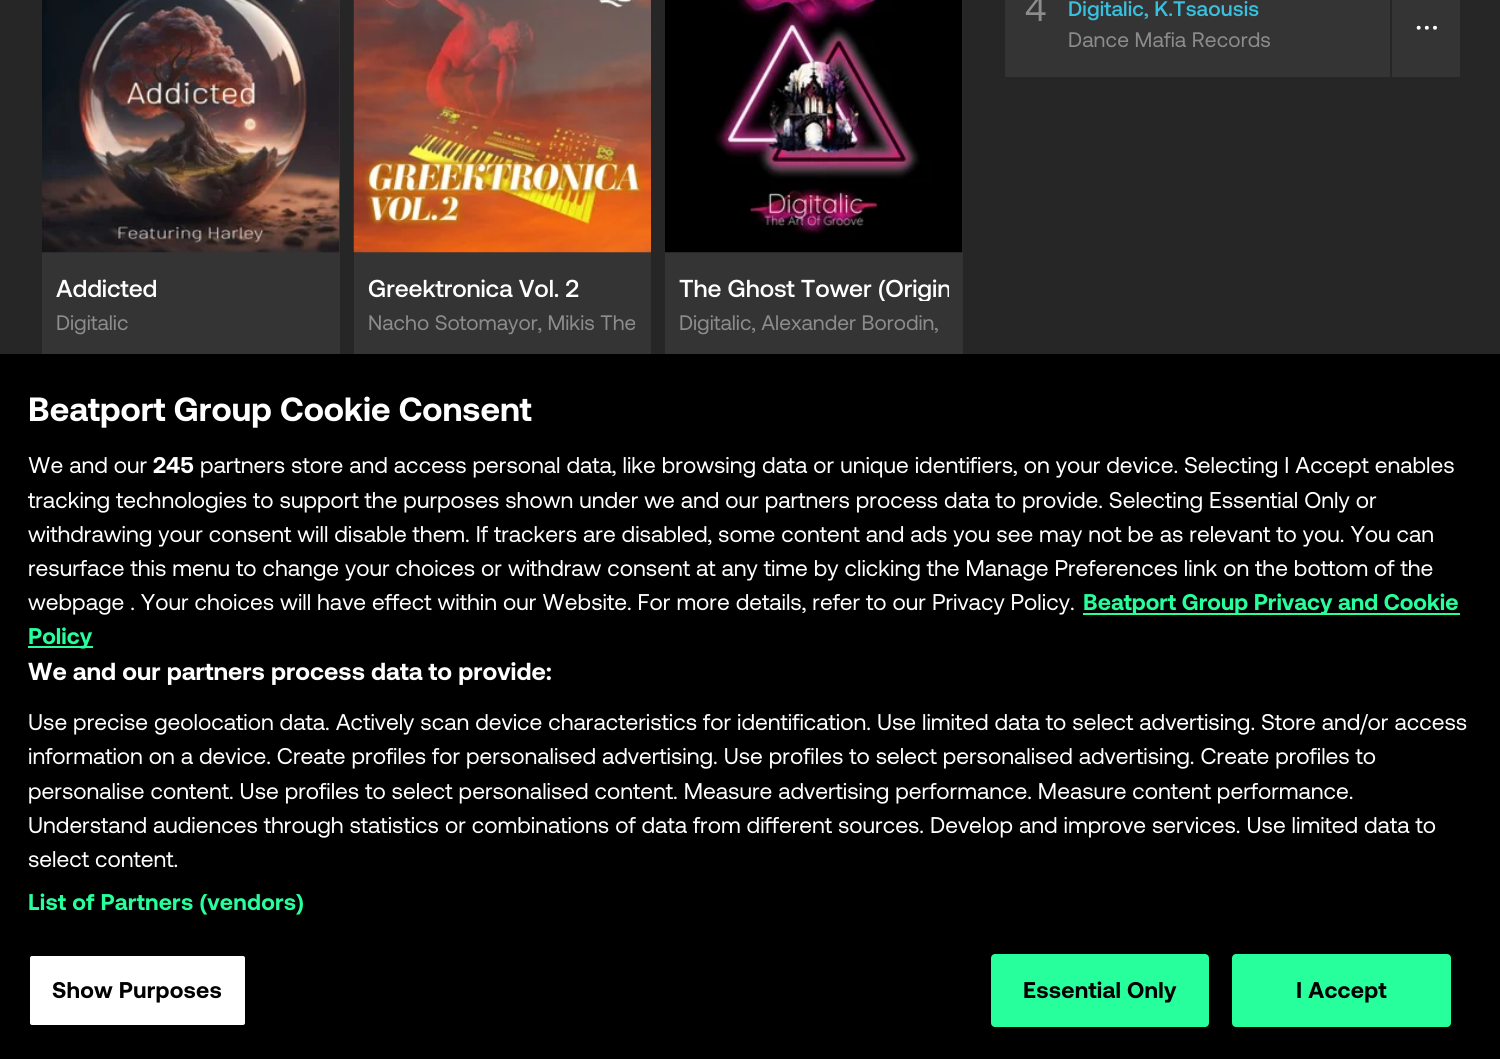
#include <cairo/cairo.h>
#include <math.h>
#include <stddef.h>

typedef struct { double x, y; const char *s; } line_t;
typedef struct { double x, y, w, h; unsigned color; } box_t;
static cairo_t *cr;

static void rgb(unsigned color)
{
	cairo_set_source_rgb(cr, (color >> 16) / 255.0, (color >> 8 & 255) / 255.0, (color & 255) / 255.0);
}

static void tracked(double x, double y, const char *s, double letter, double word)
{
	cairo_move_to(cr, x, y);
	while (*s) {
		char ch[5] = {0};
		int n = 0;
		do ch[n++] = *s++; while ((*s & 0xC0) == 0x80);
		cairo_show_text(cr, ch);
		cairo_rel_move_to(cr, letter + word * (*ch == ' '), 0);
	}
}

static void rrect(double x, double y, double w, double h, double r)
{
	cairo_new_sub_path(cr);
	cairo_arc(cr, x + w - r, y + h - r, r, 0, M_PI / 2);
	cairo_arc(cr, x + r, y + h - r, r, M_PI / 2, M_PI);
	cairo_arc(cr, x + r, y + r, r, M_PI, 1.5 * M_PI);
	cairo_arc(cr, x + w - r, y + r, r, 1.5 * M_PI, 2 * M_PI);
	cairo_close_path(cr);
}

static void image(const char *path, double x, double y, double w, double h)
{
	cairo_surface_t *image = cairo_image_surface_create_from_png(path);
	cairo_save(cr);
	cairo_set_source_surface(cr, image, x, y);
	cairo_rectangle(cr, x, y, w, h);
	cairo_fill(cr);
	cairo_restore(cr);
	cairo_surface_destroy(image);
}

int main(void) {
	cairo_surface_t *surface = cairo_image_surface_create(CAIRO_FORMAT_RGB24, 1500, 1059);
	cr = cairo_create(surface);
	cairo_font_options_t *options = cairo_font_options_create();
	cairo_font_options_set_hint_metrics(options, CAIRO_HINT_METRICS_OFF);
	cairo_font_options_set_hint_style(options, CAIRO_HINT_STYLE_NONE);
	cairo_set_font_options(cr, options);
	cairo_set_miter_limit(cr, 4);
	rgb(0x262626);
	cairo_paint(cr);
	rgb(0x343434);
	cairo_rectangle(cr, 1005, 0, 455, 77);
	cairo_fill(cr);
	rgb(0x262626);
	cairo_rectangle(cr, 1390, 0, 2, 77);
	cairo_fill(cr);
	image("img/1.png", 1416, 25, 21, 5);
	rgb(0x343434);
	cairo_rectangle(cr, 42, 0, 298, 354);
	cairo_fill(cr);
	image("img/2.png", 42, 0, 298, 253);
	cairo_rectangle(cr, 354, 252, 297, 102);
	cairo_fill(cr);
	image("img/3.png", 353, 0, 298, 253);
	cairo_rectangle(cr, 665, 0, 298, 354);
	cairo_fill(cr);
	image("img/4.png", 665, 0, 298, 253);
	{
		static const box_t items[] = {
			{0, 354, 1500, 705, 0x000000},
			{1083, 613, 377, 2, 0x27ff9c},
			{28, 646, 65, 2, 0x27ff9c},
		};
		for (size_t i = 0; i < sizeof items / sizeof *items; i++) {
			rgb(items[i].color);
			cairo_rectangle(cr, items[i].x, items[i].y, items[i].w, items[i].h);
			cairo_fill(cr);
		}
	}
	rgb(0xffffff);
	rrect(29, 955, 217, 71, 3);
	cairo_fill_preserve(cr);
	rgb(0x000000);
	cairo_stroke(cr);
	rgb(0x27ff9c);
	rrect(992, 955, 216, 71, 3);
	cairo_fill_preserve(cr);
	cairo_stroke(cr);
	rrect(1233, 955, 217, 71, 3);
	cairo_fill_preserve(cr);
	cairo_stroke(cr);
	cairo_select_font_face(cr, "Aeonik", CAIRO_FONT_SLANT_NORMAL, CAIRO_FONT_WEIGHT_NORMAL);
	cairo_set_font_size(cr, 35);
	rgb(0x8c8c8c);
	cairo_move_to(cr, 1025, 21);
	cairo_show_text(cr, "4");
	cairo_select_font_face(cr, "Aeonik Medium", CAIRO_FONT_SLANT_NORMAL, CAIRO_FONT_WEIGHT_NORMAL);
	cairo_set_font_size(cr, 21);
	rgb(0x39c0de);
	tracked(1068, 16, "Digitalic, K.Tsaousis", 0.1, 0);
	cairo_select_font_face(cr, "Aeonik", CAIRO_FONT_SLANT_NORMAL, CAIRO_FONT_WEIGHT_NORMAL);
	rgb(0x8c8c8c);
	tracked(1068, 47, "Dance Mafia Records", 0.1, 0);
	cairo_select_font_face(cr, "Aeonik Medium", CAIRO_FONT_SLANT_NORMAL, CAIRO_FONT_WEIGHT_NORMAL);
	cairo_set_font_size(cr, 24.5);
	rgb(0xffffff);
	tracked(56, 297, "Addicted", -0.1, 0);
	cairo_select_font_face(cr, "Aeonik", CAIRO_FONT_SLANT_NORMAL, CAIRO_FONT_WEIGHT_NORMAL);
	cairo_set_font_size(cr, 21);
	rgb(0x8c8c8c);
	cairo_move_to(cr, 56, 330);
	cairo_show_text(cr, "Digitalic");
	cairo_select_font_face(cr, "Aeonik Medium", CAIRO_FONT_SLANT_NORMAL, CAIRO_FONT_WEIGHT_NORMAL);
	cairo_set_font_size(cr, 24.5);
	rgb(0xffffff);
	tracked(368, 297, "Greektronica Vol. 2", -0.1, 0);
	cairo_select_font_face(cr, "Aeonik", CAIRO_FONT_SLANT_NORMAL, CAIRO_FONT_WEIGHT_NORMAL);
	cairo_set_font_size(cr, 21);
	rgb(0x8c8c8c);
	cairo_move_to(cr, 368, 330);
	cairo_show_text(cr, "Nacho Sotomayor, Mikis The");
	cairo_save(cr);
	cairo_rectangle(cr, 679, 266, 270, 35);
	cairo_clip(cr);
	cairo_select_font_face(cr, "Aeonik Medium", CAIRO_FONT_SLANT_NORMAL, CAIRO_FONT_WEIGHT_NORMAL);
	cairo_set_font_size(cr, 24.5);
	rgb(0xffffff);
	tracked(679, 297, "The Ghost Tower (Origin", -0.1, 0);
	cairo_restore(cr);
	cairo_move_to(cr, 679, 330);
	cairo_show_text(cr, "Digitalic, Alexander Borodin,");
	cairo_select_font_face(cr, "Aeonik", CAIRO_FONT_SLANT_NORMAL, CAIRO_FONT_WEIGHT_BOLD);
	cairo_set_font_size(cr, 33.6);
	rgb(0xffffff);
	cairo_move_to(cr, 28, 421);
	cairo_show_text(cr, "Beatport Group Cookie Consent");
	cairo_select_font_face(cr, "Aeonik", CAIRO_FONT_SLANT_NORMAL, CAIRO_FONT_WEIGHT_NORMAL);
	cairo_set_font_size(cr, 22.75);
	cairo_move_to(cr, 28, 473);
	cairo_show_text(cr, "We and our");
	cairo_select_font_face(cr, "Aeonik", CAIRO_FONT_SLANT_NORMAL, CAIRO_FONT_WEIGHT_BOLD);
	cairo_move_to(cr, 153, 473);
	cairo_show_text(cr, "245");
	cairo_select_font_face(cr, "Aeonik", CAIRO_FONT_SLANT_NORMAL, CAIRO_FONT_WEIGHT_NORMAL);
	{
		static const line_t items[] = {
			{200, 473, "partners store and access personal data, like browsing data or unique identifiers, on your device. Selecting I Accept enables"},
			{28, 508, "tracking technologies to support the purposes shown under we and our partners process data to provide. Selecting Essential Only or"},
			{28, 542, "withdrawing your consent will disable them. If trackers are disabled, some content and ads you see may not be as relevant to you. You can"},
			{28, 576, "resurface this menu to change your choices or withdraw consent at any time by clicking the Manage Preferences link on the bottom of the"},
			{28, 610, "webpage . Your choices will have effect within our Website. For more details, refer to our Privacy Policy."},
		};
		for (size_t i = 0; i < sizeof items / sizeof *items; i++) {
			cairo_move_to(cr, items[i].x, items[i].y);
			cairo_show_text(cr, items[i].s);
		}
	}
	cairo_select_font_face(cr, "Aeonik", CAIRO_FONT_SLANT_NORMAL, CAIRO_FONT_WEIGHT_BOLD);
	rgb(0x27ff9c);
	cairo_move_to(cr, 1083, 610);
	cairo_show_text(cr, "Beatport Group Privacy and Cookie");
	cairo_move_to(cr, 28, 644);
	cairo_show_text(cr, "Policy");
	cairo_set_font_size(cr, 24.6);
	rgb(0xffffff);
	cairo_move_to(cr, 28, 680);
	cairo_show_text(cr, "We and our partners process data to provide:");
	cairo_select_font_face(cr, "Aeonik", CAIRO_FONT_SLANT_NORMAL, CAIRO_FONT_WEIGHT_NORMAL);
	cairo_set_font_size(cr, 22.75);
	{
		static const line_t items[] = {
			{28, 730, "Use precise geolocation data. Actively scan device characteristics for identification. Use limited data to select advertising. Store and/or access"},
			{28, 764, "information on a device. Create profiles for personalised advertising. Use profiles to select personalised advertising. Create profiles to"},
			{28, 799, "personalise content. Use profiles to select personalised content. Measure advertising performance. Measure content performance."},
			{28, 833, "Understand audiences through statistics or combinations of data from different sources. Develop and improve services. Use limited data to"},
			{28, 867, "select content."},
		};
		for (size_t i = 0; i < sizeof items / sizeof *items; i++) {
			cairo_move_to(cr, items[i].x, items[i].y);
			cairo_show_text(cr, items[i].s);
		}
	}
	cairo_select_font_face(cr, "Aeonik", CAIRO_FONT_SLANT_NORMAL, CAIRO_FONT_WEIGHT_BOLD);
	rgb(0x27ff9c);
	tracked(28, 910, "List of Partners (vendors)", 0.25, 0);
	rgb(0x000000);
	{
		static const line_t items[] = {
			{52, 998, "Show Purposes"},
			{1023, 998, "Essential Only"},
			{1296, 998, "I Accept"},
		};
		for (size_t i = 0; i < sizeof items / sizeof *items; i++) {
			tracked(items[i].x, items[i].y, items[i].s, 0.25, 0);
		}
	}
	cairo_surface_write_to_png(surface, "page.png");
	cairo_font_options_destroy(options);
	cairo_destroy(cr);
	cairo_surface_destroy(surface);
	return 0;
}
